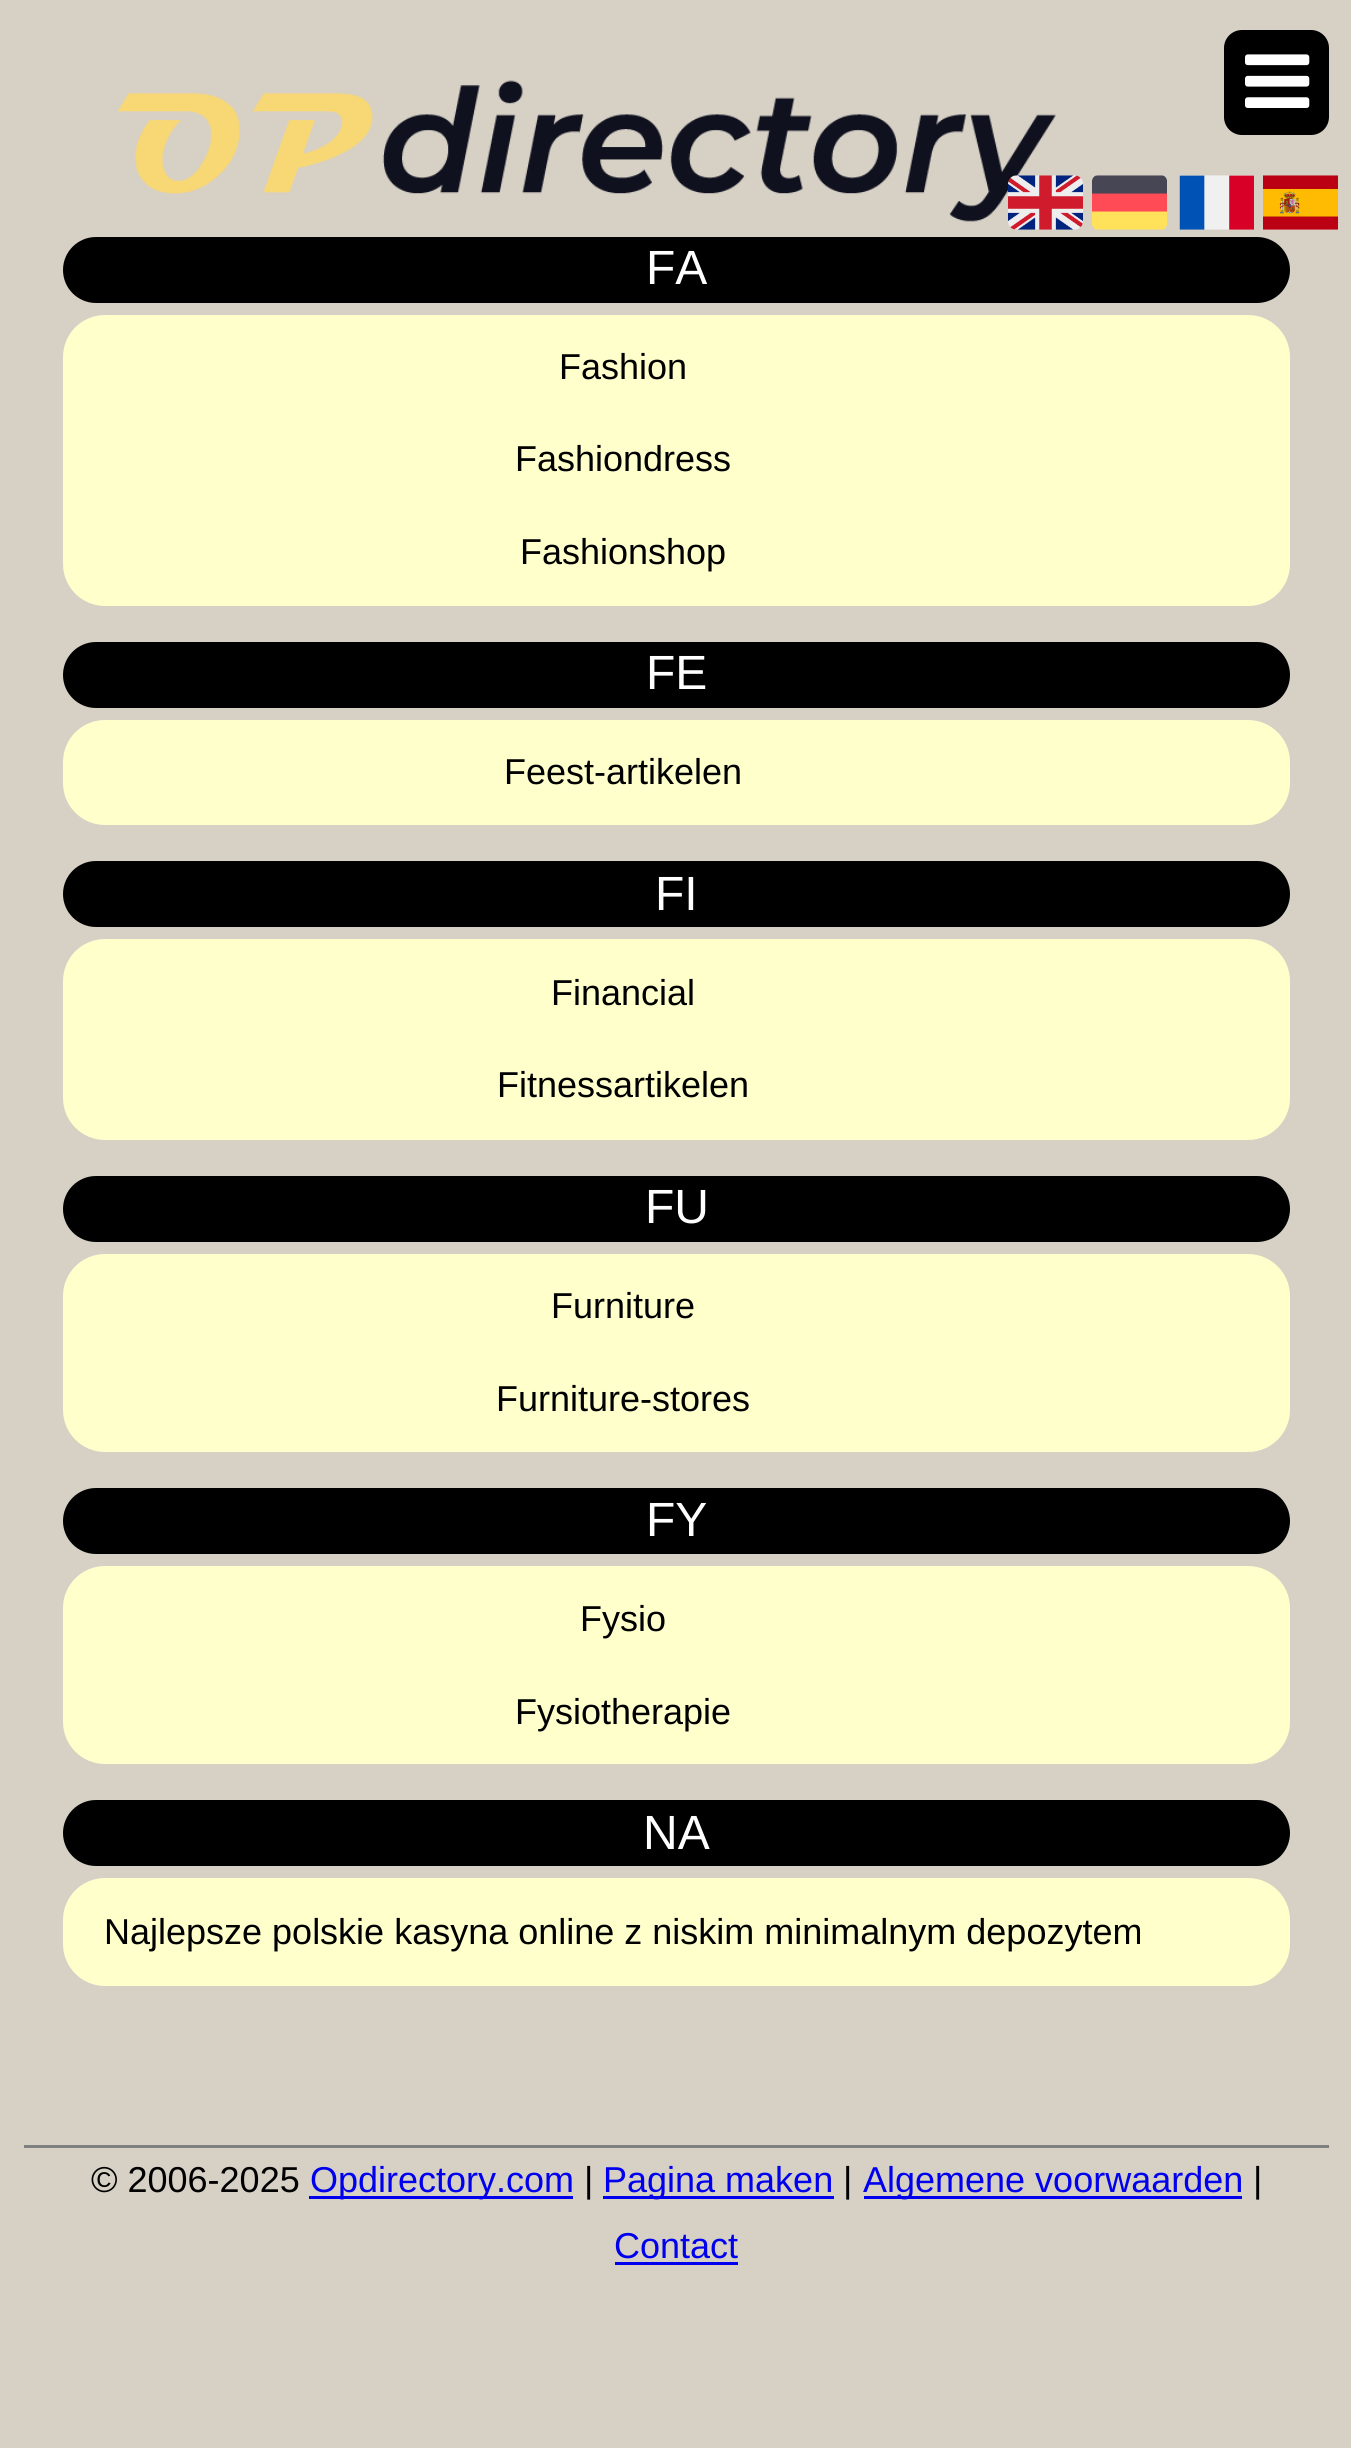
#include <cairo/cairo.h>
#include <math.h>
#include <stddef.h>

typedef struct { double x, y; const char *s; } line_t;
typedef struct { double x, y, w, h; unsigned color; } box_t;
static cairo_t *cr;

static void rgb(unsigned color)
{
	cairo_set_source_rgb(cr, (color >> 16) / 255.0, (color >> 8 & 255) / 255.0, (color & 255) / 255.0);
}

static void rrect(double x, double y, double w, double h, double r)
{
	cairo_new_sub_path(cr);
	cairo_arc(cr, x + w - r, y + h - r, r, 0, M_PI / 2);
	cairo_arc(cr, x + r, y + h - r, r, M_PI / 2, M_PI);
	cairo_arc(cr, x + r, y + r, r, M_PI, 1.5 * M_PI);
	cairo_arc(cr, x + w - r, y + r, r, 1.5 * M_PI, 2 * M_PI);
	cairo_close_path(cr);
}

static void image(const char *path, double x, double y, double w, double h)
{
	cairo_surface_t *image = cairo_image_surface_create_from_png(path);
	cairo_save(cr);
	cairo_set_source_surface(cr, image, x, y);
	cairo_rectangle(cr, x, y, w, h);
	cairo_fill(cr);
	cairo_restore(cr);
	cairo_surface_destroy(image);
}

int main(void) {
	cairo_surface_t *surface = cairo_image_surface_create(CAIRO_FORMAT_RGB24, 1351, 2448);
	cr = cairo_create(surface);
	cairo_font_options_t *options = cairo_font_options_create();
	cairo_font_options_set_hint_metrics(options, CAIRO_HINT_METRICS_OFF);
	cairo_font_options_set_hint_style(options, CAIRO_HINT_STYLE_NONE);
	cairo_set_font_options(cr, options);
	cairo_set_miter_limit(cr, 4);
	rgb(0xd6d0c5);
	cairo_paint(cr);
	image("img/1.png", 117, 80, 939, 142);
	rgb(0x000000);
	rrect(1224, 30, 105, 105, 18);
	cairo_fill(cr);
	image("img/2.png", 1245, 54, 65, 54);
	image("img/3.png", 1008, 175, 75, 55);
	image("img/4.png", 1092, 175, 75, 55);
	image("img/5.png", 1179, 175, 75, 55);
	image("img/6.png", 1263, 175, 75, 55);
	rrect(63, 237, 1227, 66, 33);
	cairo_fill(cr);
	rgb(0xffffcc);
	rrect(63, 315, 1227, 291, 42);
	cairo_fill(cr);
	rgb(0x000000);
	rrect(63, 642, 1227, 66, 33);
	cairo_fill(cr);
	rgb(0xffffcc);
	rrect(63, 720, 1227, 105, 42);
	cairo_fill(cr);
	rgb(0x000000);
	rrect(63, 861, 1227, 66, 33);
	cairo_fill(cr);
	rgb(0xffffcc);
	rrect(63, 939, 1227, 201, 42);
	cairo_fill(cr);
	rgb(0x000000);
	rrect(63, 1176, 1227, 66, 33);
	cairo_fill(cr);
	rgb(0xffffcc);
	rrect(63, 1254, 1227, 198, 42);
	cairo_fill(cr);
	rgb(0x000000);
	rrect(63, 1488, 1227, 66, 33);
	cairo_fill(cr);
	rgb(0xffffcc);
	rrect(63, 1566, 1227, 198, 42);
	cairo_fill(cr);
	rgb(0x000000);
	rrect(63, 1800, 1227, 66, 33);
	cairo_fill(cr);
	rgb(0xffffcc);
	rrect(63, 1878, 1227, 108, 42);
	cairo_fill(cr);
	{
		static const box_t items[] = {
			{24, 2145, 1305, 3, 0x808080},
			{309, 2196, 264, 3, 0x0000ee},
			{603, 2196, 231, 3, 0x0000ee},
			{864, 2196, 378, 3, 0x0000ee},
			{615, 2262, 123, 3, 0x0000ee},
		};
		for (size_t i = 0; i < sizeof items / sizeof *items; i++) {
			rgb(items[i].color);
			cairo_rectangle(cr, items[i].x, items[i].y, items[i].w, items[i].h);
			cairo_fill(cr);
		}
	}
	cairo_select_font_face(cr, "Liberation Sans", CAIRO_FONT_SLANT_NORMAL, CAIRO_FONT_WEIGHT_NORMAL);
	cairo_set_font_size(cr, 48);
	rgb(0xffffff);
	cairo_move_to(cr, 646, 284);
	cairo_show_text(cr, "FA");
	cairo_set_font_size(cr, 36);
	rgb(0x000000);
	{
		static const line_t items[] = {
			{559, 379, "Fashion"},
			{515, 471, "Fashiondress"},
			{520, 564, "Fashionshop"},
		};
		for (size_t i = 0; i < sizeof items / sizeof *items; i++) {
			cairo_move_to(cr, items[i].x, items[i].y);
			cairo_show_text(cr, items[i].s);
		}
	}
	cairo_set_font_size(cr, 48);
	rgb(0xffffff);
	cairo_move_to(cr, 646, 689);
	cairo_show_text(cr, "FE");
	cairo_set_font_size(cr, 36);
	rgb(0x000000);
	cairo_move_to(cr, 504, 784);
	cairo_show_text(cr, "Feest-artikelen");
	cairo_set_font_size(cr, 48);
	rgb(0xffffff);
	cairo_move_to(cr, 655, 910);
	cairo_show_text(cr, "FI");
	cairo_set_font_size(cr, 36);
	rgb(0x000000);
	cairo_move_to(cr, 551, 1005);
	cairo_show_text(cr, "Financial");
	cairo_move_to(cr, 497, 1097);
	cairo_show_text(cr, "Fitnessartikelen");
	cairo_set_font_size(cr, 48);
	rgb(0xffffff);
	cairo_move_to(cr, 645, 1223);
	cairo_show_text(cr, "FU");
	cairo_set_font_size(cr, 36);
	rgb(0x000000);
	cairo_move_to(cr, 551, 1318);
	cairo_show_text(cr, "Furniture");
	cairo_move_to(cr, 496, 1411);
	cairo_show_text(cr, "Furniture-stores");
	cairo_set_font_size(cr, 48);
	rgb(0xffffff);
	cairo_move_to(cr, 646, 1536);
	cairo_show_text(cr, "FY");
	cairo_set_font_size(cr, 36);
	rgb(0x000000);
	cairo_move_to(cr, 580, 1631);
	cairo_show_text(cr, "Fysio");
	cairo_move_to(cr, 515, 1724);
	cairo_show_text(cr, "Fysiotherapie");
	cairo_set_font_size(cr, 48);
	rgb(0xffffff);
	cairo_move_to(cr, 643, 1849);
	cairo_show_text(cr, "NA");
	cairo_set_font_size(cr, 36);
	rgb(0x000000);
	cairo_move_to(cr, 104, 1944);
	cairo_show_text(cr, "Najlepsze polskie kasyna online z niskim minimalnym depozytem");
	cairo_move_to(cr, 91, 2192);
	cairo_show_text(cr, "© 2006-2025");
	rgb(0x0000ee);
	cairo_move_to(cr, 310, 2192);
	cairo_show_text(cr, "Opdirectory.com");
	rgb(0x000000);
	cairo_move_to(cr, 584, 2192);
	cairo_show_text(cr, "|");
	rgb(0x0000ee);
	cairo_move_to(cr, 603, 2192);
	cairo_show_text(cr, "Pagina maken");
	rgb(0x000000);
	cairo_move_to(cr, 843, 2192);
	cairo_show_text(cr, "|");
	rgb(0x0000ee);
	cairo_move_to(cr, 863, 2192);
	cairo_show_text(cr, "Algemene voorwaarden");
	rgb(0x000000);
	cairo_move_to(cr, 1253, 2192);
	cairo_show_text(cr, "|");
	rgb(0x0000ee);
	cairo_move_to(cr, 614, 2258);
	cairo_show_text(cr, "Contact");
	cairo_surface_write_to_png(surface, "page.png");
	cairo_font_options_destroy(options);
	cairo_destroy(cr);
	cairo_surface_destroy(surface);
	return 0;
}
